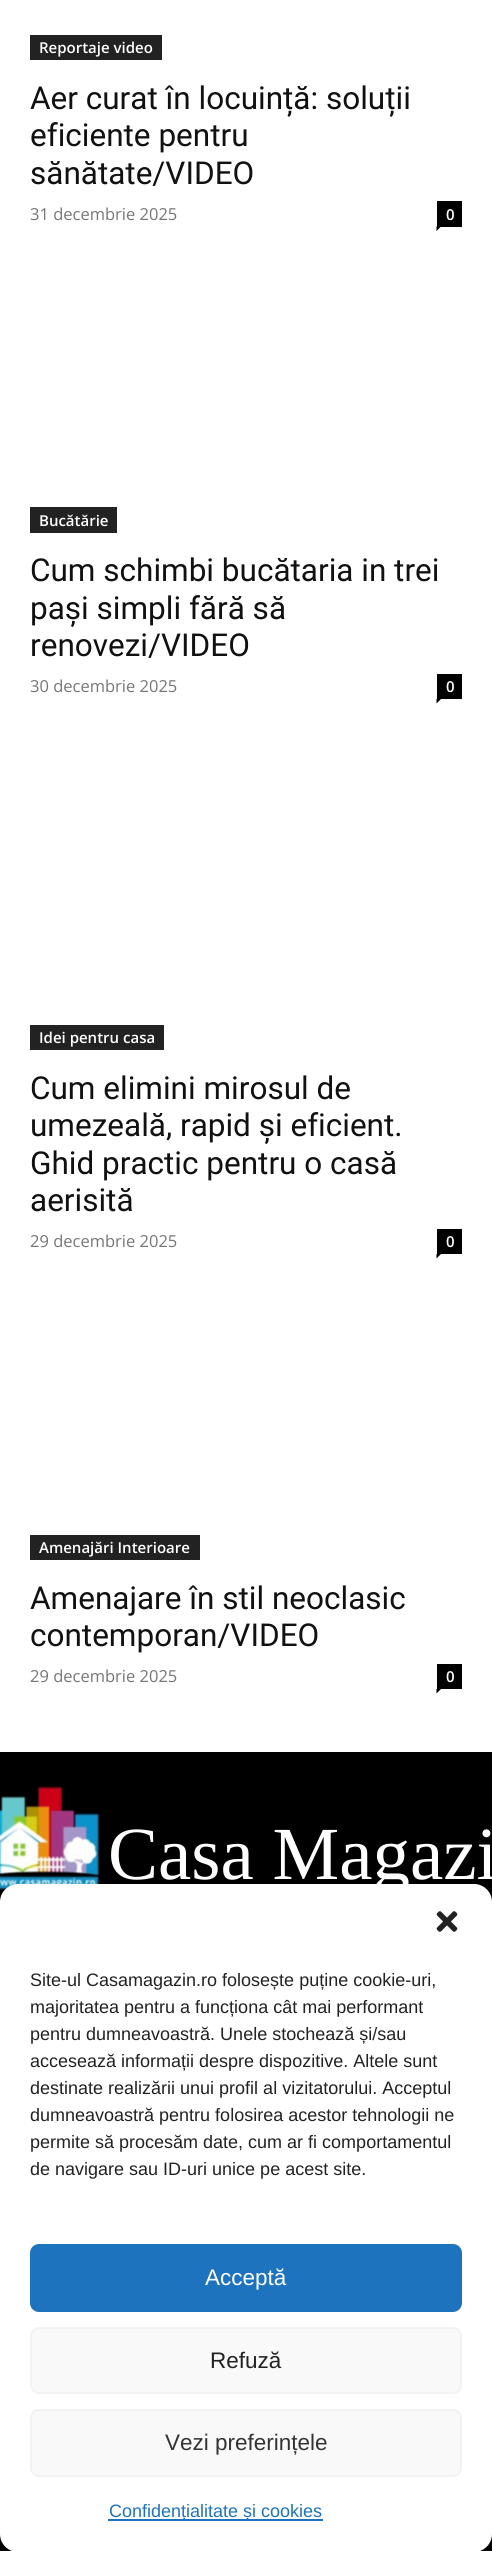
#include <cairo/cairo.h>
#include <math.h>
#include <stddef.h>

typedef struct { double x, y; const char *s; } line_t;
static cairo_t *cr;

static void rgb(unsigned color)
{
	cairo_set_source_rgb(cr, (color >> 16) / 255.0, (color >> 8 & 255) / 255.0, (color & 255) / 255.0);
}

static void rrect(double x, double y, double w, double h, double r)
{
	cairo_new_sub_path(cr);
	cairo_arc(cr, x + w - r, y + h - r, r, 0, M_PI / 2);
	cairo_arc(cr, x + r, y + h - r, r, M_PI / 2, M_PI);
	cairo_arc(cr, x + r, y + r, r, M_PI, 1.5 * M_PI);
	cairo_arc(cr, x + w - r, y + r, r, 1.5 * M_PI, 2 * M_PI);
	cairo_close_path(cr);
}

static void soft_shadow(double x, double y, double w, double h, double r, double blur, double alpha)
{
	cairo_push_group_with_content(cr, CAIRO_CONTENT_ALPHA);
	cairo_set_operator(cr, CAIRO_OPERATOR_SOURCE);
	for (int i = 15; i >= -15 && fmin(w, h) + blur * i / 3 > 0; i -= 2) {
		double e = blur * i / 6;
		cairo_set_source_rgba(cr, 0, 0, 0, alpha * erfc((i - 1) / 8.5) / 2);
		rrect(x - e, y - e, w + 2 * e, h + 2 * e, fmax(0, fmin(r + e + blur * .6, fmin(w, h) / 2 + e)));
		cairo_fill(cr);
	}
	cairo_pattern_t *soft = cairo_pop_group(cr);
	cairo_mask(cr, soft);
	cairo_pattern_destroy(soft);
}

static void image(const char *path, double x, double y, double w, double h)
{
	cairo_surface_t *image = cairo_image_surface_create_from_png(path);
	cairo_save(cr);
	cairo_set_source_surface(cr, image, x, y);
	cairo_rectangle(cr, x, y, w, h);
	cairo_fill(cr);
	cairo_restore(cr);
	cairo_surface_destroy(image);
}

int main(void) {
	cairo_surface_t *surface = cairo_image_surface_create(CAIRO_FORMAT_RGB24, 492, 2551);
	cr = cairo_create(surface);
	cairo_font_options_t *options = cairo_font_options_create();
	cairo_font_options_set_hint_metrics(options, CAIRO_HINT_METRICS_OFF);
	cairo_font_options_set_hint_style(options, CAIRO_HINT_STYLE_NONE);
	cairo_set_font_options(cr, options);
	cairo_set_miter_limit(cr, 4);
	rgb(0xffffff);
	cairo_paint(cr);
	rgb(0x222222);
	cairo_rectangle(cr, 30, 35, 132, 25);
	cairo_fill(cr);
	rgb(0x000000);
	cairo_rectangle(cr, 437, 201, 25, 26);
	cairo_fill(cr);
	cairo_new_path(cr);
	cairo_move_to(cr, 436.5, 226.5);
	cairo_line_to(cr, 441, 226.5);
	cairo_line_to(cr, 436.5, 231);
	cairo_close_path(cr);
	cairo_fill(cr);
	rgb(0x222222);
	cairo_rectangle(cr, 30, 507, 87, 26);
	cairo_fill(cr);
	rgb(0x000000);
	cairo_rectangle(cr, 437, 674, 25, 25);
	cairo_fill(cr);
	cairo_new_path(cr);
	cairo_move_to(cr, 436.5, 699);
	cairo_line_to(cr, 441, 699);
	cairo_line_to(cr, 436.5, 703.5);
	cairo_close_path(cr);
	cairo_fill(cr);
	rgb(0x222222);
	cairo_rectangle(cr, 30, 1025, 134, 25);
	cairo_fill(cr);
	rgb(0x000000);
	cairo_rectangle(cr, 437, 1229, 25, 25);
	cairo_fill(cr);
	cairo_new_path(cr);
	cairo_move_to(cr, 436.5, 1254);
	cairo_line_to(cr, 441, 1254);
	cairo_line_to(cr, 436.5, 1258.5);
	cairo_close_path(cr);
	cairo_fill(cr);
	rgb(0x222222);
	cairo_rectangle(cr, 30, 1535, 170, 25);
	cairo_fill(cr);
	rgb(0x000000);
	cairo_rectangle(cr, 437, 1664, 25, 25);
	cairo_fill(cr);
	cairo_new_path(cr);
	cairo_move_to(cr, 436.5, 1689);
	cairo_line_to(cr, 441, 1689);
	cairo_line_to(cr, 436.5, 1693.5);
	cairo_close_path(cr);
	cairo_fill(cr);
	cairo_rectangle(cr, 0, 1752, 492, 799);
	cairo_fill(cr);
	image("img/1.png", 0, 1786, 101, 105);
	rgb(0x000000);
	soft_shadow(0, 1899, 492, 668, 18, 15, 0.19);
	rgb(0xffffff);
	rrect(0, 1884, 492, 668, 18);
	cairo_fill(cr);
	image("img/2.png", 436, 1911, 22, 21);
	rgb(0x1e73be);
	rrect(31, 2245, 430, 66, 8);
	cairo_fill_preserve(cr);
	cairo_stroke(cr);
	rgb(0xf9f9f9);
	rrect(31, 2328, 430, 65, 8);
	cairo_fill_preserve(cr);
	rgb(0xf2f2f2);
	cairo_stroke(cr);
	rgb(0xf9f9f9);
	rrect(31, 2410, 430, 66, 8);
	cairo_fill_preserve(cr);
	rgb(0xf2f2f2);
	cairo_stroke(cr);
	rgb(0x1e73be);
	cairo_rectangle(cr, 108, 2519, 215, 2);
	cairo_fill(cr);
	cairo_select_font_face(cr, "Open Sans SemiBold", CAIRO_FONT_SLANT_NORMAL, CAIRO_FONT_WEIGHT_NORMAL);
	cairo_set_font_size(cr, 15);
	rgb(0xffffff);
	cairo_move_to(cr, 39, 53);
	cairo_show_text(cr, "Reportaje video");
	cairo_select_font_face(cr, "Roboto", CAIRO_FONT_SLANT_NORMAL, CAIRO_FONT_WEIGHT_NORMAL);
	cairo_set_font_size(cr, 31.5);
	rgb(0x111111);
	{
		static const line_t items[] = {
			{30, 109, "Aer curat în locuință: soluții"},
			{30, 146, "eficiente pentru"},
			{30, 184, "sănătate/VIDEO"},
		};
		for (size_t i = 0; i < sizeof items / sizeof *items; i++) {
			cairo_move_to(cr, items[i].x, items[i].y);
			cairo_show_text(cr, items[i].s);
		}
	}
	cairo_select_font_face(cr, "Open Sans", CAIRO_FONT_SLANT_NORMAL, CAIRO_FONT_WEIGHT_NORMAL);
	cairo_set_font_size(cr, 16.5);
	rgb(0x767676);
	cairo_move_to(cr, 30, 220);
	cairo_show_text(cr, "31 decembrie 2025");
	cairo_select_font_face(cr, "Open Sans SemiBold", CAIRO_FONT_SLANT_NORMAL, CAIRO_FONT_WEIGHT_NORMAL);
	cairo_set_font_size(cr, 15);
	rgb(0xffffff);
	cairo_move_to(cr, 446, 220);
	cairo_show_text(cr, "0");
	cairo_move_to(cr, 39, 526);
	cairo_show_text(cr, "Bucătărie");
	cairo_select_font_face(cr, "Roboto", CAIRO_FONT_SLANT_NORMAL, CAIRO_FONT_WEIGHT_NORMAL);
	cairo_set_font_size(cr, 31.5);
	rgb(0x111111);
	{
		static const line_t items[] = {
			{30, 581, "Cum schimbi bucătaria in trei"},
			{30, 619, "pași simpli fără să"},
			{30, 656, "renovezi/VIDEO"},
		};
		for (size_t i = 0; i < sizeof items / sizeof *items; i++) {
			cairo_move_to(cr, items[i].x, items[i].y);
			cairo_show_text(cr, items[i].s);
		}
	}
	cairo_select_font_face(cr, "Open Sans", CAIRO_FONT_SLANT_NORMAL, CAIRO_FONT_WEIGHT_NORMAL);
	cairo_set_font_size(cr, 16.5);
	rgb(0x767676);
	cairo_move_to(cr, 30, 692);
	cairo_show_text(cr, "30 decembrie 2025");
	cairo_select_font_face(cr, "Open Sans SemiBold", CAIRO_FONT_SLANT_NORMAL, CAIRO_FONT_WEIGHT_NORMAL);
	cairo_set_font_size(cr, 15);
	rgb(0xffffff);
	cairo_move_to(cr, 446, 692);
	cairo_show_text(cr, "0");
	cairo_move_to(cr, 39, 1043);
	cairo_show_text(cr, "Idei pentru casa");
	cairo_select_font_face(cr, "Roboto", CAIRO_FONT_SLANT_NORMAL, CAIRO_FONT_WEIGHT_NORMAL);
	cairo_set_font_size(cr, 31.5);
	rgb(0x111111);
	{
		static const line_t items[] = {
			{30, 1099, "Cum elimini mirosul de"},
			{30, 1136, "umezeală, rapid și eficient."},
			{30, 1174, "Ghid practic pentru o casă"},
			{30, 1211, "aerisită"},
		};
		for (size_t i = 0; i < sizeof items / sizeof *items; i++) {
			cairo_move_to(cr, items[i].x, items[i].y);
			cairo_show_text(cr, items[i].s);
		}
	}
	cairo_select_font_face(cr, "Open Sans", CAIRO_FONT_SLANT_NORMAL, CAIRO_FONT_WEIGHT_NORMAL);
	cairo_set_font_size(cr, 16.5);
	rgb(0x767676);
	cairo_move_to(cr, 30, 1247);
	cairo_show_text(cr, "29 decembrie 2025");
	cairo_select_font_face(cr, "Open Sans SemiBold", CAIRO_FONT_SLANT_NORMAL, CAIRO_FONT_WEIGHT_NORMAL);
	cairo_set_font_size(cr, 15);
	rgb(0xffffff);
	cairo_move_to(cr, 446, 1247);
	cairo_show_text(cr, "0");
	cairo_move_to(cr, 39, 1553);
	cairo_show_text(cr, "Amenajări Interioare");
	cairo_select_font_face(cr, "Roboto", CAIRO_FONT_SLANT_NORMAL, CAIRO_FONT_WEIGHT_NORMAL);
	cairo_set_font_size(cr, 31.5);
	rgb(0x111111);
	cairo_move_to(cr, 30, 1609);
	cairo_show_text(cr, "Amenajare în stil neoclasic");
	cairo_move_to(cr, 30, 1646);
	cairo_show_text(cr, "contemporan/VIDEO");
	cairo_select_font_face(cr, "Open Sans", CAIRO_FONT_SLANT_NORMAL, CAIRO_FONT_WEIGHT_NORMAL);
	cairo_set_font_size(cr, 16.5);
	rgb(0x767676);
	cairo_move_to(cr, 30, 1682);
	cairo_show_text(cr, "29 decembrie 2025");
	cairo_select_font_face(cr, "Open Sans SemiBold", CAIRO_FONT_SLANT_NORMAL, CAIRO_FONT_WEIGHT_NORMAL);
	cairo_set_font_size(cr, 15);
	rgb(0xffffff);
	cairo_move_to(cr, 446, 1682);
	cairo_show_text(cr, "0");
	cairo_select_font_face(cr, "Liberation Serif", CAIRO_FONT_SLANT_NORMAL, CAIRO_FONT_WEIGHT_NORMAL);
	cairo_set_font_size(cr, 75);
	cairo_move_to(cr, 108, 1879);
	cairo_show_text(cr, "Casa Magazi");
	cairo_select_font_face(cr, "Liberation Sans", CAIRO_FONT_SLANT_NORMAL, CAIRO_FONT_WEIGHT_NORMAL);
	cairo_set_font_size(cr, 18);
	rgb(0x222222);
	{
		static const line_t items[] = {
			{30, 1986, "Site-ul Casamagazin.ro folosește puține cookie-uri,"},
			{30, 2013, "majoritatea pentru a funcționa cât mai performant"},
			{30, 2040, "pentru dumneavoastră. Unele stochează și/sau"},
			{30, 2067, "accesează informații despre dispozitive. Altele sunt"},
			{30, 2094, "destinate realizării unui profil al vizitatorului. Acceptul"},
			{30, 2121, "dumneavoastră pentru folosirea acestor tehnologii ne"},
			{30, 2148, "permite să procesăm date, cum ar fi comportamentul"},
			{30, 2175, "de navigare sau ID-uri unice pe acest site."},
		};
		for (size_t i = 0; i < sizeof items / sizeof *items; i++) {
			cairo_move_to(cr, items[i].x, items[i].y);
			cairo_show_text(cr, items[i].s);
		}
	}
	cairo_set_font_size(cr, 22.5);
	rgb(0xffffff);
	cairo_move_to(cr, 205, 2285);
	cairo_show_text(cr, "Acceptă");
	rgb(0x222222);
	cairo_move_to(cr, 210, 2368);
	cairo_show_text(cr, "Refuză");
	rgb(0x333333);
	cairo_move_to(cr, 165, 2450);
	cairo_show_text(cr, "Vezi preferințele");
	cairo_set_font_size(cr, 18);
	rgb(0x1e73be);
	cairo_move_to(cr, 109, 2517);
	cairo_show_text(cr, "Confidențialitate și cookies");
	cairo_surface_write_to_png(surface, "page.png");
	cairo_font_options_destroy(options);
	cairo_destroy(cr);
	cairo_surface_destroy(surface);
	return 0;
}
